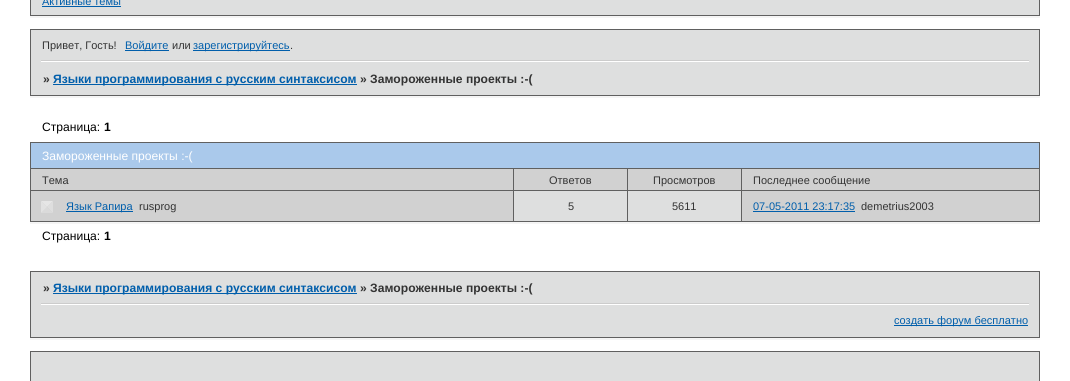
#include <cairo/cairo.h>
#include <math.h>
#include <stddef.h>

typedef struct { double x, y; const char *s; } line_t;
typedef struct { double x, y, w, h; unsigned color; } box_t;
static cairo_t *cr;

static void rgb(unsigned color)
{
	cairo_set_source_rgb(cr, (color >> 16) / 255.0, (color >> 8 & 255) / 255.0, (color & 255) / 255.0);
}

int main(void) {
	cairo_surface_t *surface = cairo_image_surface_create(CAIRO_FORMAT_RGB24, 1070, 381);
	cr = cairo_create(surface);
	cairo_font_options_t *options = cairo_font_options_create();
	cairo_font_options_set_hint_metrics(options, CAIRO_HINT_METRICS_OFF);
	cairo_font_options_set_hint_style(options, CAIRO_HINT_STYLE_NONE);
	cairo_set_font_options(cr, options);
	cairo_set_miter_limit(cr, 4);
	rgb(0xffffff);
	cairo_paint(cr);
	rgb(0xf5f5f5);
	cairo_rectangle(cr, 30, 16, 1010, 2);
	cairo_fill(cr);
	rgb(0xdedfdf);
	cairo_rectangle(cr, 30.5, -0.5, 1009, 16);
	cairo_fill_preserve(cr);
	rgb(0x606060);
	cairo_set_line_width(cr, 1);
	cairo_stroke(cr);
	{
		static const box_t items[] = {
			{42, 6, 79, 1, 0x005eab},
			{31, 30, 1008, 65, 0xdedfdf},
			{30, 29, 1010, 1, 0x606060},
			{1039, 29, 1, 67, 0x606060},
			{30, 29, 1, 33, 0x606060},
			{125, 50, 44, 1, 0x005eab},
			{193, 50, 97, 1, 0x005eab},
			{41, 60, 988, 1, 0xcccccc},
			{41, 61, 988, 1, 0xffffff},
			{30, 96, 1010, 2, 0xf5f5f5},
			{30, 95, 1010, 1, 0x606060},
			{30, 60, 1, 36, 0x606060},
			{53, 84, 304, 1, 0x005eab},
			{31, 143, 1008, 25, 0xaac9eb},
			{30, 142, 1010, 1, 0x606060},
			{1039, 142, 1, 26, 0x606060},
			{30, 142, 1, 26, 0x606060},
			{30, 222, 1010, 2, 0xf5f5f5},
		};
		for (size_t i = 0; i < sizeof items / sizeof *items; i++) {
			rgb(items[i].color);
			cairo_rectangle(cr, items[i].x, items[i].y, items[i].w, items[i].h);
			cairo_fill(cr);
		}
	}
	rgb(0xd1d1d1);
	cairo_rectangle(cr, 30.5, 168.5, 1009, 53);
	cairo_fill_preserve(cr);
	rgb(0x606060);
	cairo_stroke(cr);
	{
		static const box_t items[] = {
			{513, 169, 1, 21, 0x606060},
			{627, 169, 1, 21, 0x606060},
			{31, 190, 1008, 1, 0x606060},
			{741, 169, 1, 52, 0x606060},
		};
		for (size_t i = 0; i < sizeof items / sizeof *items; i++) {
			rgb(items[i].color);
			cairo_rectangle(cr, items[i].x, items[i].y, items[i].w, items[i].h);
			cairo_fill(cr);
		}
	}
	rgb(0xe6e6e6);
	cairo_new_path(cr);
	cairo_move_to(cr, 41, 201);
	cairo_line_to(cr, 53, 201);
	cairo_line_to(cr, 47, 207);
	cairo_close_path(cr);
	cairo_fill(cr);
	rgb(0xdedede);
	cairo_new_path(cr);
	cairo_move_to(cr, 53, 201);
	cairo_line_to(cr, 53, 213);
	cairo_line_to(cr, 47, 207);
	cairo_close_path(cr);
	cairo_fill(cr);
	rgb(0xdadada);
	cairo_new_path(cr);
	cairo_move_to(cr, 53, 213);
	cairo_line_to(cr, 41, 213);
	cairo_line_to(cr, 47, 207);
	cairo_close_path(cr);
	cairo_fill(cr);
	rgb(0xe2e2e2);
	cairo_new_path(cr);
	cairo_move_to(cr, 41, 213);
	cairo_line_to(cr, 41, 201);
	cairo_line_to(cr, 47, 207);
	cairo_close_path(cr);
	cairo_fill(cr);
	{
		static const box_t items[] = {
			{66, 211, 67, 1, 0x005eab},
			{514, 191, 113, 30, 0xdedfdf},
			{513, 190, 1, 31, 0x606060},
			{628, 191, 113, 30, 0xdedfdf},
			{627, 190, 1, 31, 0x606060},
			{753, 211, 102, 1, 0x005eab},
			{30, 271, 1010, 1, 0x606060},
			{1039, 303, 1, 35, 0x606060},
			{1039, 271, 1, 34, 0x606060},
			{30, 337, 1010, 1, 0x606060},
			{30, 303, 1, 35, 0x606060},
			{30, 271, 1, 34, 0x606060},
			{31, 272, 1008, 65, 0xdedfdf},
			{53, 293, 304, 1, 0x005eab},
			{41, 303, 988, 1, 0xcccccc},
			{41, 304, 988, 1, 0xffffff},
			{30, 338, 1010, 2, 0xf5f5f5},
			{894, 325, 134, 1, 0x005eab},
		};
		for (size_t i = 0; i < sizeof items / sizeof *items; i++) {
			rgb(items[i].color);
			cairo_rectangle(cr, items[i].x, items[i].y, items[i].w, items[i].h);
			cairo_fill(cr);
		}
	}
	rgb(0xdedfdf);
	cairo_rectangle(cr, 30.5, 351.5, 1009, 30);
	cairo_fill_preserve(cr);
	rgb(0x606060);
	cairo_stroke(cr);
	cairo_select_font_face(cr, "Liberation Sans", CAIRO_FONT_SLANT_NORMAL, CAIRO_FONT_WEIGHT_NORMAL);
	cairo_set_font_size(cr, 11);
	rgb(0x005eab);
	cairo_move_to(cr, 42, 5);
	cairo_show_text(cr, "Активные темы");
	rgb(0x333333);
	cairo_move_to(cr, 42, 49);
	cairo_show_text(cr, "Привет, Гость!");
	rgb(0x005eab);
	cairo_move_to(cr, 125, 49);
	cairo_show_text(cr, "Войдите");
	rgb(0x333333);
	cairo_move_to(cr, 172, 49);
	cairo_show_text(cr, "или");
	rgb(0x005eab);
	cairo_move_to(cr, 193, 49);
	cairo_show_text(cr, "зарегистрируйтесь");
	rgb(0x333333);
	cairo_move_to(cr, 290, 49);
	cairo_show_text(cr, ".");
	cairo_select_font_face(cr, "Liberation Sans", CAIRO_FONT_SLANT_NORMAL, CAIRO_FONT_WEIGHT_BOLD);
	cairo_set_font_size(cr, 12.1);
	cairo_move_to(cr, 43, 83);
	cairo_show_text(cr, "»");
	rgb(0x005eab);
	cairo_move_to(cr, 53, 83);
	cairo_show_text(cr, "Языки программирования с русским синтаксисом");
	rgb(0x333333);
	cairo_move_to(cr, 360, 83);
	cairo_show_text(cr, "» Замороженные проекты :-(");
	cairo_select_font_face(cr, "Liberation Sans", CAIRO_FONT_SLANT_NORMAL, CAIRO_FONT_WEIGHT_NORMAL);
	rgb(0x000000);
	cairo_move_to(cr, 42, 131);
	cairo_show_text(cr, "Страница:");
	cairo_select_font_face(cr, "Liberation Sans", CAIRO_FONT_SLANT_NORMAL, CAIRO_FONT_WEIGHT_BOLD);
	cairo_move_to(cr, 104, 131);
	cairo_show_text(cr, "1");
	cairo_select_font_face(cr, "Liberation Sans", CAIRO_FONT_SLANT_NORMAL, CAIRO_FONT_WEIGHT_NORMAL);
	rgb(0xffffff);
	cairo_move_to(cr, 42, 160);
	cairo_show_text(cr, "Замороженные проекты :-(");
	cairo_set_font_size(cr, 11);
	rgb(0x333333);
	{
		static const line_t items[] = {
			{42, 184, "Тема"},
			{549, 184, "Ответов"},
			{653, 184, "Просмотров"},
			{753, 184, "Последнее сообщение"},
		};
		for (size_t i = 0; i < sizeof items / sizeof *items; i++) {
			cairo_move_to(cr, items[i].x, items[i].y);
			cairo_show_text(cr, items[i].s);
		}
	}
	rgb(0x005eab);
	cairo_move_to(cr, 66, 210);
	cairo_show_text(cr, "Язык Рапира");
	rgb(0x333333);
	{
		static const line_t items[] = {
			{139, 210, "rusprog"},
			{568, 210, "5"},
			{672, 210, "5611"},
		};
		for (size_t i = 0; i < sizeof items / sizeof *items; i++) {
			cairo_move_to(cr, items[i].x, items[i].y);
			cairo_show_text(cr, items[i].s);
		}
	}
	rgb(0x005eab);
	cairo_move_to(cr, 753, 210);
	cairo_show_text(cr, "07-05-2011 23:17:35");
	rgb(0x333333);
	cairo_move_to(cr, 861, 210);
	cairo_show_text(cr, "demetrius2003");
	cairo_set_font_size(cr, 12.1);
	rgb(0x000000);
	cairo_move_to(cr, 42, 240);
	cairo_show_text(cr, "Страница:");
	cairo_select_font_face(cr, "Liberation Sans", CAIRO_FONT_SLANT_NORMAL, CAIRO_FONT_WEIGHT_BOLD);
	cairo_move_to(cr, 104, 240);
	cairo_show_text(cr, "1");
	rgb(0x333333);
	cairo_move_to(cr, 43, 292);
	cairo_show_text(cr, "»");
	rgb(0x005eab);
	cairo_move_to(cr, 53, 292);
	cairo_show_text(cr, "Языки программирования с русским синтаксисом");
	rgb(0x333333);
	cairo_move_to(cr, 360, 292);
	cairo_show_text(cr, "» Замороженные проекты :-(");
	cairo_select_font_face(cr, "Liberation Sans", CAIRO_FONT_SLANT_NORMAL, CAIRO_FONT_WEIGHT_NORMAL);
	cairo_set_font_size(cr, 11);
	rgb(0x005eab);
	cairo_move_to(cr, 894, 324);
	cairo_show_text(cr, "создать форум бесплатно");
	cairo_surface_write_to_png(surface, "page.png");
	cairo_font_options_destroy(options);
	cairo_destroy(cr);
	cairo_surface_destroy(surface);
	return 0;
}
